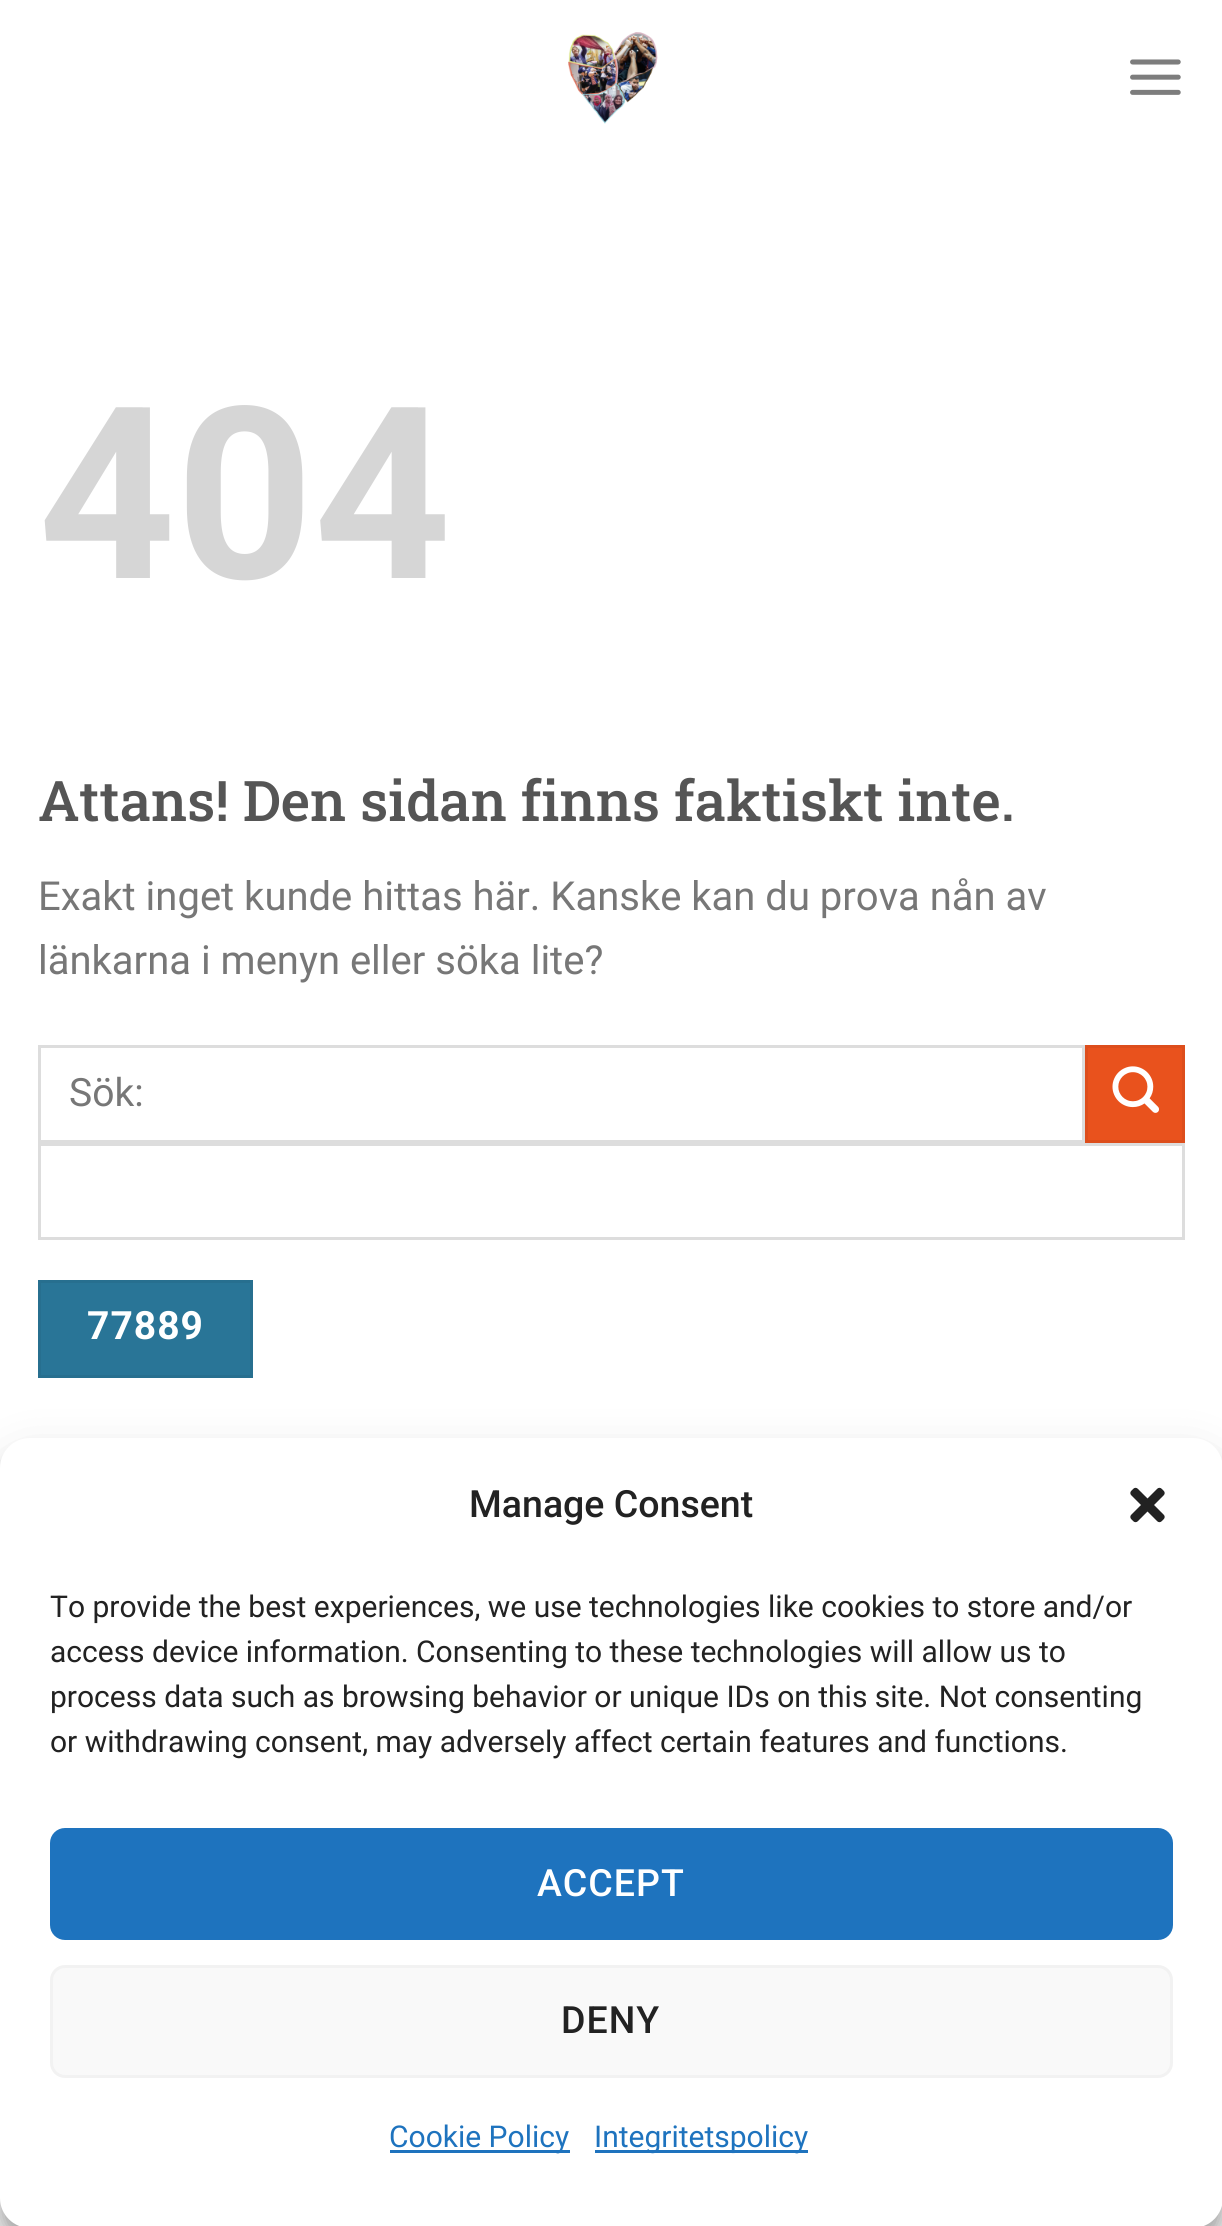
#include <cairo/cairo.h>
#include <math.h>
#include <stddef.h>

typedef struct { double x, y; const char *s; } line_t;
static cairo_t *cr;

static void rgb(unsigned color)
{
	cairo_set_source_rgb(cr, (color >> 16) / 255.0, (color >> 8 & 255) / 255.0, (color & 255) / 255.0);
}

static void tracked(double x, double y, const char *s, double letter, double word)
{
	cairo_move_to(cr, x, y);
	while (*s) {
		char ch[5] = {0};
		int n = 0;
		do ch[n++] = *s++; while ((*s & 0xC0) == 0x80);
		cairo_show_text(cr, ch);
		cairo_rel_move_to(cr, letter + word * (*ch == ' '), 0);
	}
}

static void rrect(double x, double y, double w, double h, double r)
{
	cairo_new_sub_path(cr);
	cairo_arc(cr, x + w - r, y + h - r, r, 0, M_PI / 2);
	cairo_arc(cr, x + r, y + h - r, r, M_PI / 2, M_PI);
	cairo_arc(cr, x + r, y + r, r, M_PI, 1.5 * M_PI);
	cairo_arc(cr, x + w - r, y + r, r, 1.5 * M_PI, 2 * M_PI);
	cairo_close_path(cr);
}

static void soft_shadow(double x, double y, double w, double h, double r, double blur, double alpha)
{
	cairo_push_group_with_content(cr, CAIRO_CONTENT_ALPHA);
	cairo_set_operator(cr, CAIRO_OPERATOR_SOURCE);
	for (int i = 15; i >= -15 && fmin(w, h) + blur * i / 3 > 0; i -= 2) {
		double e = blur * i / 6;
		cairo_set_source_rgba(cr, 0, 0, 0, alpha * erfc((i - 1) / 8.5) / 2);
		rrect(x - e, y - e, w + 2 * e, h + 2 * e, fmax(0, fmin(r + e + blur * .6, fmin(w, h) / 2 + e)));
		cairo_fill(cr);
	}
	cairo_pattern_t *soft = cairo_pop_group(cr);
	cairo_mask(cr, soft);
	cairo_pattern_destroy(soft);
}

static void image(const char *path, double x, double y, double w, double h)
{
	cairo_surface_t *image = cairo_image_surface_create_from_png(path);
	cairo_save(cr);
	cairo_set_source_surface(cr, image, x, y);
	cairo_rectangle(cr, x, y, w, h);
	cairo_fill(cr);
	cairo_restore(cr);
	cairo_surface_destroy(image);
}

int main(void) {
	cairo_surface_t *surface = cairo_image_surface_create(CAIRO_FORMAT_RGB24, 1222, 2226);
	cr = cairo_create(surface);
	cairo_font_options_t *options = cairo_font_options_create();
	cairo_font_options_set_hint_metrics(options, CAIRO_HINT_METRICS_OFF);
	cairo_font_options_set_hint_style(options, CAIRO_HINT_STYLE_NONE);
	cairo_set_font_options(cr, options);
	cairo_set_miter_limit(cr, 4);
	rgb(0xffffff);
	cairo_paint(cr);
	image("img/1.png", 568, 32, 90, 92);
	image("img/2.png", 1130, 59, 51, 36);
	cairo_rectangle(cr, 39.5, 1046.5, 1044, 95);
	rgb(0xdddddd);
	cairo_set_line_width(cr, 3);
	cairo_stroke(cr);
	rgb(0xe9521d);
	cairo_rectangle(cr, 1086.5, 1046.5, 97, 95);
	cairo_fill_preserve(cr);
	rgb(0xdd4e1c);
	cairo_stroke(cr);
	image("img/3.png", 1112, 1066, 47, 47);
	cairo_rectangle(cr, 39.5, 1144.5, 1144, 94);
	rgb(0xdddddd);
	cairo_stroke(cr);
	rgb(0x297597);
	cairo_rectangle(cr, 39.5, 1281.5, 212, 95);
	cairo_fill_preserve(cr);
	rgb(0x276f8f);
	cairo_stroke(cr);
	rgb(0x000000);
	soft_shadow(0, 1453, 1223, 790, 30, 7.5, 0.23);
	soft_shadow(0, 1463, 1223, 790, 30, 25, 0.19);
	rgb(0xffffff);
	rrect(0, 1438, 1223, 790, 30);
	cairo_fill(cr);
	image("img/4.png", 1130, 1487, 35, 36);
	rgb(0x1e73be);
	rrect(51.5, 1829.5, 1120, 109, 13.5);
	cairo_fill_preserve(cr);
	cairo_stroke(cr);
	rgb(0xf9f9f9);
	rrect(51.5, 1966.5, 1120, 110, 13.5);
	cairo_fill_preserve(cr);
	rgb(0xf2f2f2);
	cairo_stroke(cr);
	rgb(0x1e73be);
	cairo_rectangle(cr, 390, 2150, 180, 3);
	cairo_fill(cr);
	cairo_rectangle(cr, 595, 2150, 213, 3);
	cairo_fill(cr);
	cairo_select_font_face(cr, "Roboto", CAIRO_FONT_SLANT_NORMAL, CAIRO_FONT_WEIGHT_BOLD);
	cairo_set_font_size(cr, 240);
	rgb(0xd6d6d6);
	cairo_move_to(cr, 38, 578);
	cairo_show_text(cr, "404");
	cairo_select_font_face(cr, "Roboto Slab Medium", CAIRO_FONT_SLANT_NORMAL, CAIRO_FONT_WEIGHT_NORMAL);
	cairo_set_font_size(cr, 56);
	rgb(0x555555);
	cairo_move_to(cr, 38, 821);
	cairo_show_text(cr, "Attans! Den sidan finns faktiskt inte.");
	cairo_select_font_face(cr, "Roboto", CAIRO_FONT_SLANT_NORMAL, CAIRO_FONT_WEIGHT_NORMAL);
	cairo_set_font_size(cr, 40);
	rgb(0x777777);
	cairo_move_to(cr, 38, 910);
	cairo_show_text(cr, "Exakt inget kunde hittas här. Kanske kan du prova nån av");
	cairo_move_to(cr, 38, 974);
	cairo_show_text(cr, "länkarna i menyn eller söka lite?");
	cairo_set_font_size(cr, 39);
	cairo_move_to(cr, 69, 1106);
	cairo_show_text(cr, "Sök:");
	cairo_select_font_face(cr, "Roboto", CAIRO_FONT_SLANT_NORMAL, CAIRO_FONT_WEIGHT_BOLD);
	rgb(0xffffff);
	tracked(87, 1339, "77889", 1, 0);
	cairo_select_font_face(cr, "Roboto Medium", CAIRO_FONT_SLANT_NORMAL, CAIRO_FONT_WEIGHT_NORMAL);
	cairo_set_font_size(cr, 37.5);
	rgb(0x222222);
	cairo_move_to(cr, 469, 1517);
	cairo_show_text(cr, "Manage Consent");
	cairo_select_font_face(cr, "Roboto", CAIRO_FONT_SLANT_NORMAL, CAIRO_FONT_WEIGHT_NORMAL);
	cairo_set_font_size(cr, 30);
	{
		static const line_t items[] = {
			{50, 1617, "To provide the best experiences, we use technologies like cookies to store and/or"},
			{50, 1662, "access device information. Consenting to these technologies will allow us to"},
			{50, 1707, "process data such as browsing behavior or unique IDs on this site. Not consenting"},
			{50, 1752, "or withdrawing consent, may adversely affect certain features and functions."},
		};
		for (size_t i = 0; i < sizeof items / sizeof *items; i++) {
			cairo_move_to(cr, items[i].x, items[i].y);
			cairo_show_text(cr, items[i].s);
		}
	}
	cairo_select_font_face(cr, "Roboto Medium", CAIRO_FONT_SLANT_NORMAL, CAIRO_FONT_WEIGHT_NORMAL);
	cairo_set_font_size(cr, 37.5);
	rgb(0xffffff);
	tracked(537, 1896, "ACCEPT", 1, 0);
	rgb(0x222222);
	tracked(561, 2033, "DENY", 1, 0);
	cairo_select_font_face(cr, "Roboto", CAIRO_FONT_SLANT_NORMAL, CAIRO_FONT_WEIGHT_NORMAL);
	cairo_set_font_size(cr, 30);
	rgb(0x1e73be);
	cairo_move_to(cr, 389, 2147);
	cairo_show_text(cr, "Cookie Policy");
	cairo_move_to(cr, 594, 2147);
	cairo_show_text(cr, "Integritetspolicy");
	cairo_surface_write_to_png(surface, "page.png");
	cairo_font_options_destroy(options);
	cairo_destroy(cr);
	cairo_surface_destroy(surface);
	return 0;
}
